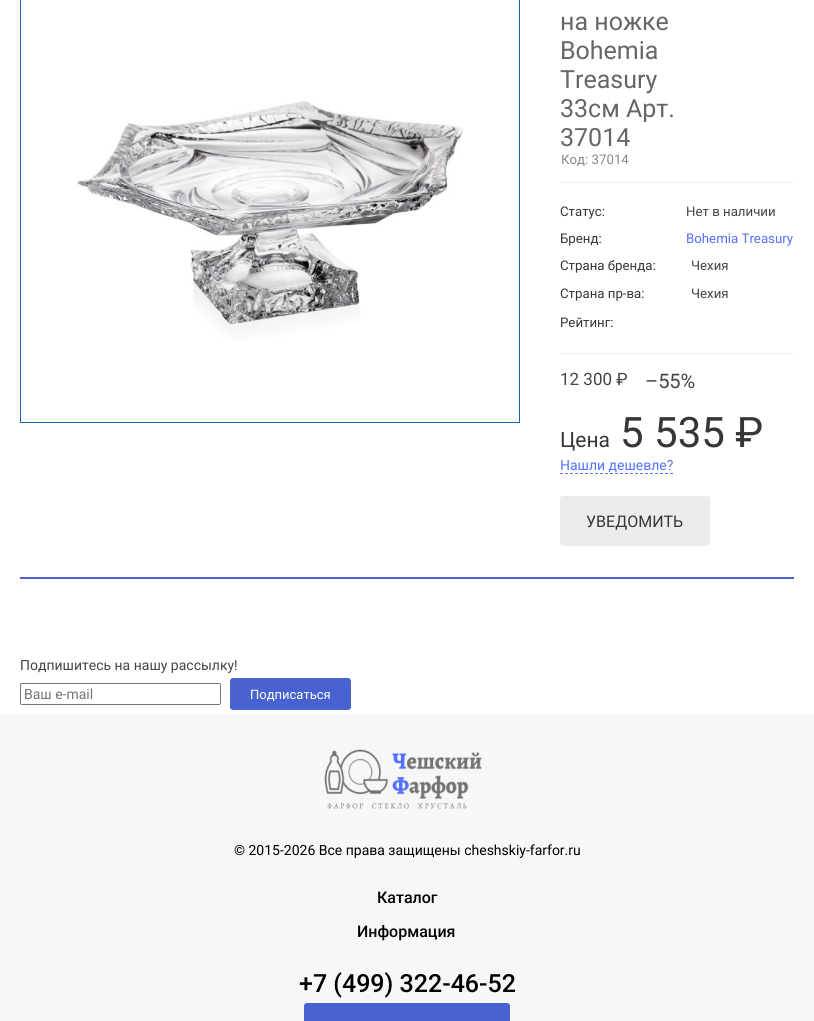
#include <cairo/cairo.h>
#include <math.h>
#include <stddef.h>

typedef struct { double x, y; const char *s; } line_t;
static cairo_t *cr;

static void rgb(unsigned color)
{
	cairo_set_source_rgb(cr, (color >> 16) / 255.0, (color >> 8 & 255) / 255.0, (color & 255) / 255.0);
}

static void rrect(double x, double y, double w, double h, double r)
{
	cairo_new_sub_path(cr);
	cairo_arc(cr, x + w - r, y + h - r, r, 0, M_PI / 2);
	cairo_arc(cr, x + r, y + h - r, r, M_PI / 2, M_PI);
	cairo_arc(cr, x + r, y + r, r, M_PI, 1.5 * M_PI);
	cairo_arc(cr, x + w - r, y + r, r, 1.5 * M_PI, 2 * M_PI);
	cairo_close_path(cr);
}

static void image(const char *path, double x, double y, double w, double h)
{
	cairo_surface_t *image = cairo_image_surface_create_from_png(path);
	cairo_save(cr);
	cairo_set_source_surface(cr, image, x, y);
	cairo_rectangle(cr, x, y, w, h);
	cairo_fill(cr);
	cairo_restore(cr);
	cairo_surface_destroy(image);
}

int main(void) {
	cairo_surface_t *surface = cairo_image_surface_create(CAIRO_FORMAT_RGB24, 814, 1021);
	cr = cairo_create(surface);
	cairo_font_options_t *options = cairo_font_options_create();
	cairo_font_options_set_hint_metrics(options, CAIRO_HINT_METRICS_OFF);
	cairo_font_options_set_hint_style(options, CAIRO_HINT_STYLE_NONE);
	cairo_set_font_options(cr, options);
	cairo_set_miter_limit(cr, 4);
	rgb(0xffffff);
	cairo_paint(cr);
	cairo_rectangle(cr, 20.5, -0.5, 499, 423);
	rgb(0x1465b7);
	cairo_set_line_width(cr, 1);
	cairo_stroke(cr);
	image("img/1.png", 76, 101, 388, 239);
	rgb(0xeeeeee);
	cairo_rectangle(cr, 560, 182, 234, 1);
	cairo_fill(cr);
	cairo_rectangle(cr, 560, 353, 234, 1);
	cairo_fill(cr);
	cairo_new_path(cr);
	cairo_move_to(cr, 560, 473.5);
	cairo_line_to(cr, 673, 473.5);
	rgb(0x5271ff);
	cairo_set_dash(cr, (double[]){3, 2}, 2, 0);
	cairo_stroke(cr);
	rgb(0xececec);
	rrect(560.5, 496.5, 149, 49, 2.5);
	cairo_fill_preserve(cr);
	cairo_set_dash(cr, NULL, 0, 0);
	cairo_stroke(cr);
	rgb(0x4962d1);
	cairo_rectangle(cr, 20, 577, 774, 2);
	cairo_fill(cr);
	rrect(20.5, 683.5, 200, 21, 1.5);
	rgb(0x767676);
	cairo_stroke(cr);
	rgb(0x4962d1);
	rrect(230.5, 678.5, 120, 31, 2.5);
	cairo_fill_preserve(cr);
	rgb(0x4e65ca);
	cairo_stroke(cr);
	rgb(0xf7f7f7);
	cairo_rectangle(cr, 0, 715, 814, 306);
	cairo_fill(cr);
	image("img/2.png", 324, 749, 158, 60);
	rgb(0x4962d1);
	rrect(304.5, 1003.5, 205, 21, 2.5);
	cairo_fill_preserve(cr);
	rgb(0x4e65ca);
	cairo_stroke(cr);
	cairo_select_font_face(cr, "Roboto", CAIRO_FONT_SLANT_NORMAL, CAIRO_FONT_WEIGHT_NORMAL);
	cairo_set_font_size(cr, 25);
	rgb(0x666666);
	{
		static const line_t items[] = {
			{560, 30, "на ножке"},
			{560, 59, "Bohemia"},
			{560, 88, "Treasury"},
			{560, 117, "33см Арт."},
			{560, 146, "37014"},
		};
		for (size_t i = 0; i < sizeof items / sizeof *items; i++) {
			cairo_move_to(cr, items[i].x, items[i].y);
			cairo_show_text(cr, items[i].s);
		}
	}
	cairo_set_font_size(cr, 13.25);
	rgb(0x888888);
	cairo_move_to(cr, 561, 164);
	cairo_show_text(cr, "Код: 37014");
	rgb(0x373636);
	cairo_move_to(cr, 560, 216);
	cairo_show_text(cr, "Статус:");
	rgb(0x444444);
	cairo_move_to(cr, 686, 216);
	cairo_show_text(cr, "Нет в наличии");
	rgb(0x373636);
	cairo_move_to(cr, 560, 243);
	cairo_show_text(cr, "Бренд:");
	rgb(0x5271ff);
	cairo_move_to(cr, 686, 243);
	cairo_show_text(cr, "Bohemia Treasury");
	rgb(0x373636);
	cairo_move_to(cr, 560, 270);
	cairo_show_text(cr, "Страна бренда:");
	rgb(0x444444);
	cairo_move_to(cr, 691, 270);
	cairo_show_text(cr, "Чехия");
	rgb(0x373636);
	cairo_move_to(cr, 560, 298);
	cairo_show_text(cr, "Страна пр-ва:");
	rgb(0x444444);
	cairo_move_to(cr, 691, 298);
	cairo_show_text(cr, "Чехия");
	rgb(0x373636);
	cairo_move_to(cr, 560, 327);
	cairo_show_text(cr, "Рейтинг:");
	cairo_set_font_size(cr, 17);
	rgb(0x444444);
	cairo_move_to(cr, 560, 385);
	cairo_show_text(cr, "12 300 ₽");
	cairo_set_font_size(cr, 20);
	cairo_move_to(cr, 645, 388);
	cairo_show_text(cr, "–55%");
	cairo_set_font_size(cr, 21);
	rgb(0x373636);
	cairo_move_to(cr, 560, 447);
	cairo_show_text(cr, "Цена");
	cairo_set_font_size(cr, 42);
	cairo_move_to(cr, 620, 447);
	cairo_show_text(cr, "5 535 ₽");
	cairo_set_font_size(cr, 14);
	rgb(0x5271ff);
	cairo_move_to(cr, 560, 470);
	cairo_show_text(cr, "Нашли дешевле?");
	cairo_set_font_size(cr, 16);
	rgb(0x373636);
	cairo_move_to(cr, 586, 527);
	cairo_show_text(cr, "УВЕДОМИТЬ");
	cairo_set_font_size(cr, 14);
	rgb(0x444444);
	cairo_move_to(cr, 20, 670);
	cairo_show_text(cr, "Подпишитесь на нашу рассылку!");
	rgb(0x757575);
	cairo_move_to(cr, 24, 699);
	cairo_show_text(cr, "Ваш e-mail");
	cairo_set_font_size(cr, 13);
	rgb(0xffffff);
	cairo_move_to(cr, 250, 699);
	cairo_show_text(cr, "Подписаться");
	cairo_set_font_size(cr, 14);
	rgb(0x000000);
	cairo_move_to(cr, 234, 855);
	cairo_show_text(cr, "© 2015-2026 Все права защищены cheshskiy-farfor.ru");
	cairo_select_font_face(cr, "Roboto Medium", CAIRO_FONT_SLANT_NORMAL, CAIRO_FONT_WEIGHT_NORMAL);
	cairo_set_font_size(cr, 16);
	cairo_move_to(cr, 377, 903);
	cairo_show_text(cr, "Каталог");
	cairo_move_to(cr, 357, 937);
	cairo_show_text(cr, "Информация");
	cairo_set_font_size(cr, 25);
	cairo_move_to(cr, 299, 992);
	cairo_show_text(cr, "+7 (499) 322-46-52");
	cairo_surface_write_to_png(surface, "page.png");
	cairo_font_options_destroy(options);
	cairo_destroy(cr);
	cairo_surface_destroy(surface);
	return 0;
}
